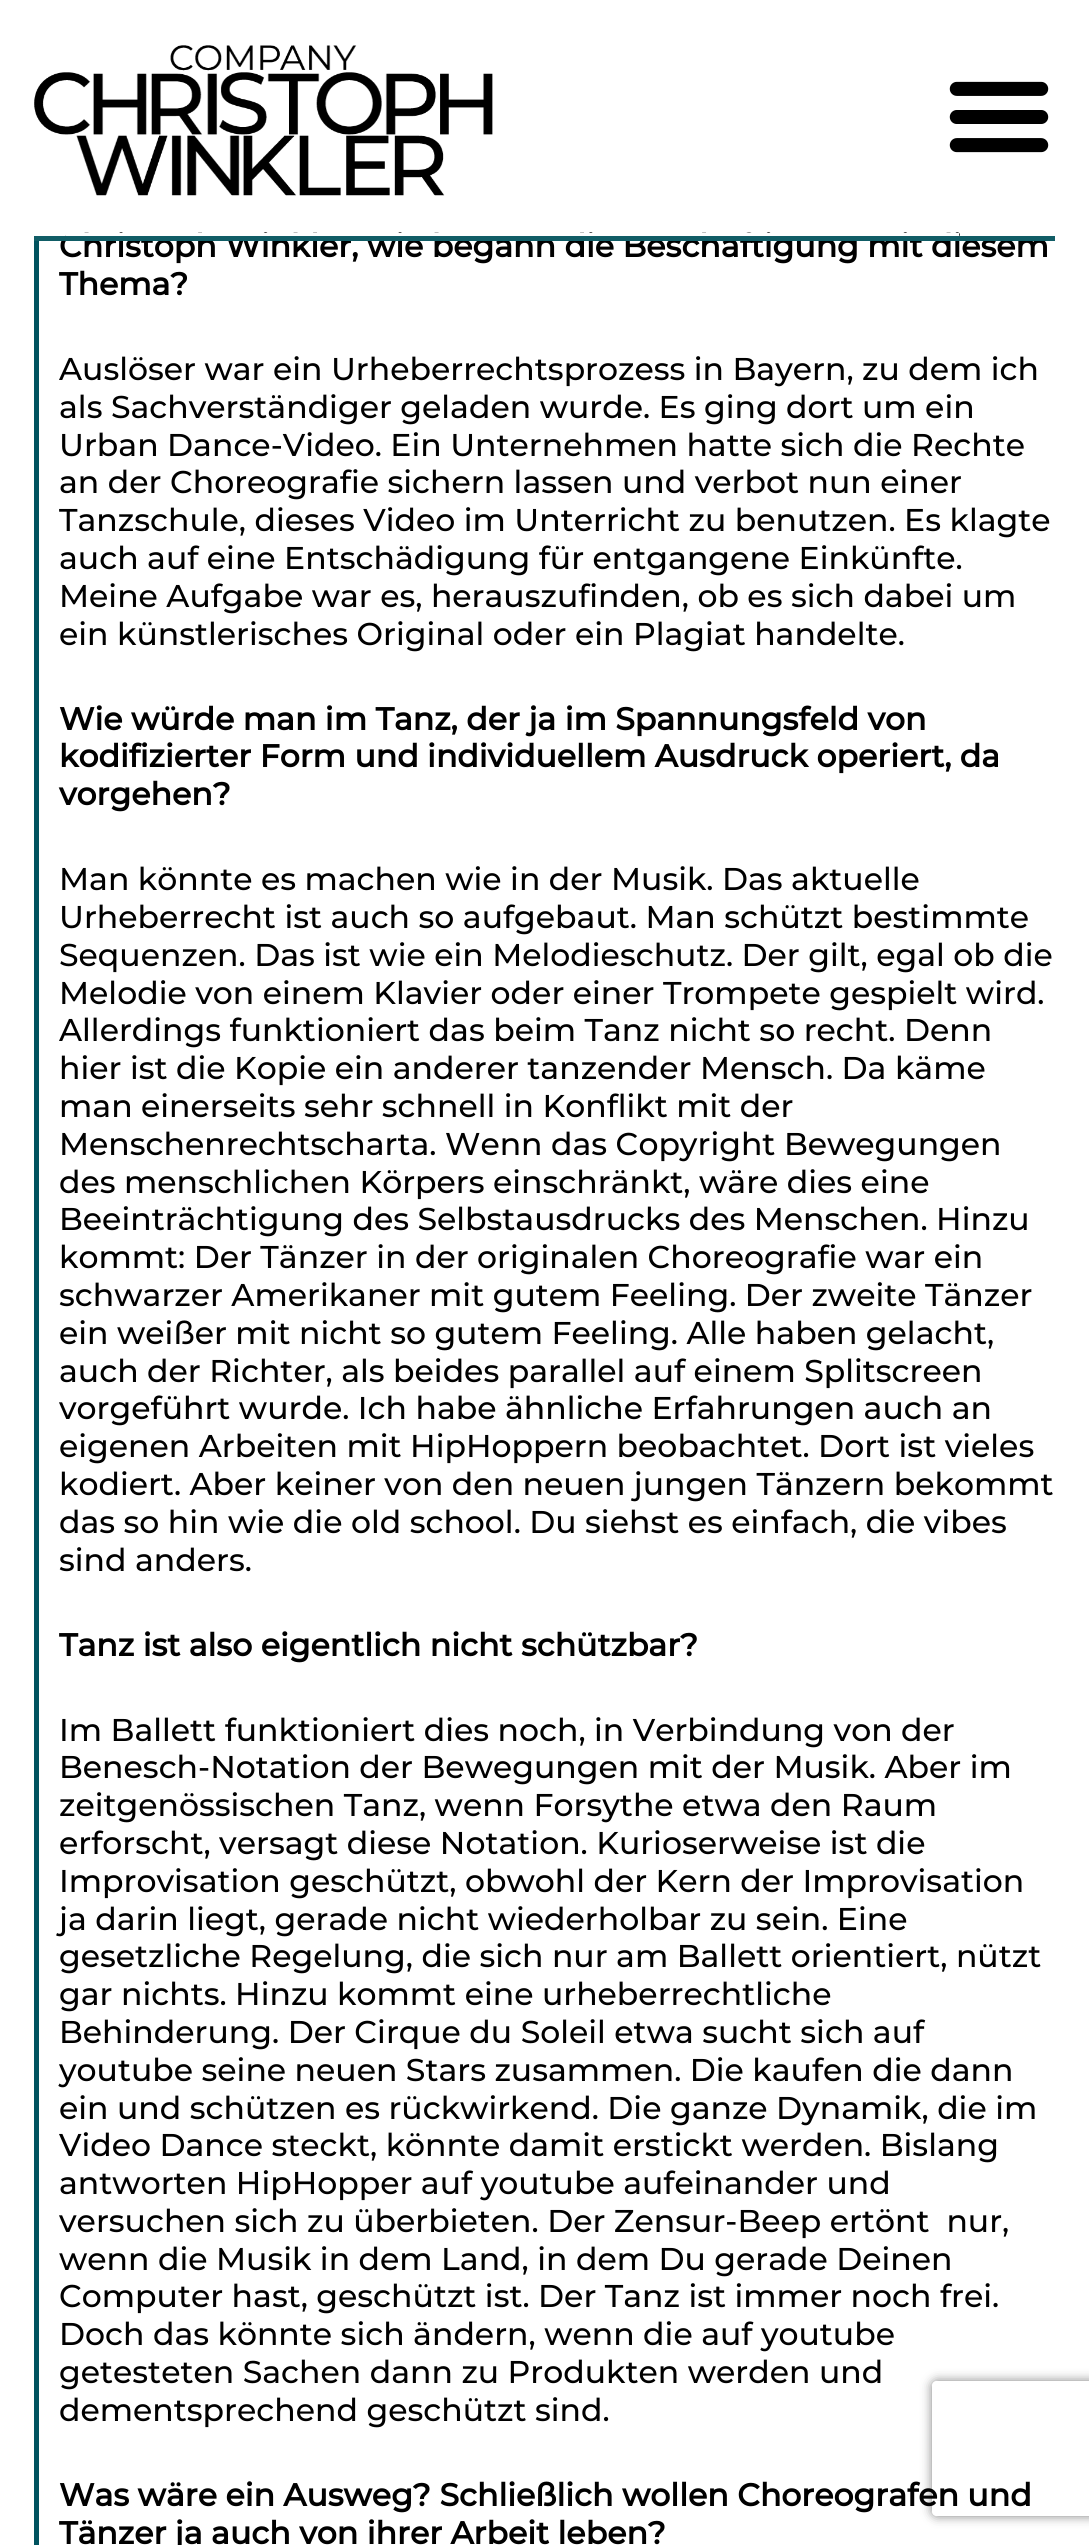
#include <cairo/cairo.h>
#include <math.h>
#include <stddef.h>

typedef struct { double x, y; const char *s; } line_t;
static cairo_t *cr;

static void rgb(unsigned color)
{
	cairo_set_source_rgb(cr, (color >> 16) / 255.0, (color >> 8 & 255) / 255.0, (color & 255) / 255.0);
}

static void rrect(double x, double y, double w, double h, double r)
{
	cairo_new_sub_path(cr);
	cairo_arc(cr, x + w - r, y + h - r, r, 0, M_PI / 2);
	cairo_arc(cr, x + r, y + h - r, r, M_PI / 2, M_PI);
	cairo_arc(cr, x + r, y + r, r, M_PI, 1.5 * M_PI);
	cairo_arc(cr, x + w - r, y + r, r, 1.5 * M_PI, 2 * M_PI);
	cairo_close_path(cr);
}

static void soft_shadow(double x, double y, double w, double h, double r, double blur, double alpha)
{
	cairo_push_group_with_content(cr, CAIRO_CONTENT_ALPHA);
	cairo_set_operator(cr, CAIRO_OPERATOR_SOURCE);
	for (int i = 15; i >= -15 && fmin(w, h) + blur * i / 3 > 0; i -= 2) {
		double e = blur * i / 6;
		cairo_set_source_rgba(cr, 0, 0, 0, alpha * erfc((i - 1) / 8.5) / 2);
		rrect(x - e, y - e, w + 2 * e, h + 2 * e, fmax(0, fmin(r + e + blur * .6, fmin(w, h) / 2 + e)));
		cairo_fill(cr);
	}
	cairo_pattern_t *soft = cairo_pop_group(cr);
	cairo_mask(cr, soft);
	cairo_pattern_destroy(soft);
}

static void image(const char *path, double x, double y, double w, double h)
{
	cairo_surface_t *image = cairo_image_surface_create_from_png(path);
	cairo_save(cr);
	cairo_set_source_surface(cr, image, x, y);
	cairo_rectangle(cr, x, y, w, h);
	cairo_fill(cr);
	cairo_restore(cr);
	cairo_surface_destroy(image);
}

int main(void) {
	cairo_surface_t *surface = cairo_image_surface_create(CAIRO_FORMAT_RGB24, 1089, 2545);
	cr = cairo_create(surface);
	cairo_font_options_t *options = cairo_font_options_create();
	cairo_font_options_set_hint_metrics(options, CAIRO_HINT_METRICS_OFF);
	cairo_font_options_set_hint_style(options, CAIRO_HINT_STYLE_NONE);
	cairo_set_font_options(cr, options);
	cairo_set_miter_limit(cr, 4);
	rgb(0xffffff);
	cairo_paint(cr);
	image("img/1.png", 34, 45, 459, 151);
	image("img/2.png", 949, 81, 100, 72);
	rgb(0x00535f);
	cairo_rectangle(cr, 34, 241, 5, 2304);
	cairo_fill(cr);
	cairo_save(cr);
	cairo_set_fill_rule(cr, CAIRO_FILL_RULE_EVEN_ODD);
	cairo_new_path(cr);
	cairo_move_to(cr, 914, 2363);
	cairo_line_to(cr, 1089, 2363);
	cairo_line_to(cr, 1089, 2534);
	cairo_line_to(cr, 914, 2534);
	cairo_close_path(cr);
	cairo_move_to(cr, 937, 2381);
	cairo_line_to(cr, 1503, 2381);
	cairo_curve_to(cr, 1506, 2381, 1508, 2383, 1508, 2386);
	cairo_line_to(cr, 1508, 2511);
	cairo_curve_to(cr, 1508, 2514, 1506, 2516, 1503, 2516);
	cairo_line_to(cr, 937, 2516);
	cairo_curve_to(cr, 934, 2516, 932, 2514, 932, 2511);
	cairo_line_to(cr, 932, 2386);
	cairo_curve_to(cr, 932, 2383, 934, 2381, 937, 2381);
	cairo_close_path(cr);
	cairo_clip(cr);
	rgb(0x808080);
	soft_shadow(932, 2381, 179, 135, 5, 5.5, 1);
	cairo_restore(cr);
	cairo_select_font_face(cr, "Montserrat", CAIRO_FONT_SLANT_NORMAL, CAIRO_FONT_WEIGHT_BOLD);
	cairo_set_font_size(cr, 31.5);
	rgb(0x000000);
	cairo_move_to(cr, 59, 257);
	cairo_show_text(cr, "Christoph Winkler, wie begann die Beschäftigung mit diesem");
	rgb(0x115d66);
	cairo_rectangle(cr, 34, 236, 1021, 5);
	cairo_fill(cr);
	rgb(0xffffff);
	cairo_rectangle(cr, 66, 233, 893, 3);
	cairo_fill(cr);
	rgb(0x000000);
	cairo_move_to(cr, 59, 295);
	cairo_show_text(cr, "Thema?");
	cairo_select_font_face(cr, "Montserrat Medium", CAIRO_FONT_SLANT_NORMAL, CAIRO_FONT_WEIGHT_NORMAL);
	{
		static const line_t items[] = {
			{59, 380, "Auslöser war ein Urheberrechtsprozess in Bayern, zu dem ich"},
			{59, 418, "als Sachverständiger geladen wurde. Es ging dort um ein"},
			{59, 456, "Urban Dance-Video. Ein Unternehmen hatte sich die Rechte"},
			{59, 493, "an der Choreografie sichern lassen und verbot nun einer"},
			{59, 531, "Tanzschule, dieses Video im Unterricht zu benutzen. Es klagte"},
			{59, 569, "auch auf eine Entschädigung für entgangene Einkünfte."},
			{59, 607, "Meine Aufgabe war es, herauszufinden, ob es sich dabei um"},
			{59, 645, "ein künstlerisches Original oder ein Plagiat handelte."},
		};
		for (size_t i = 0; i < sizeof items / sizeof *items; i++) {
			cairo_move_to(cr, items[i].x, items[i].y);
			cairo_show_text(cr, items[i].s);
		}
	}
	cairo_select_font_face(cr, "Montserrat", CAIRO_FONT_SLANT_NORMAL, CAIRO_FONT_WEIGHT_BOLD);
	{
		static const line_t items[] = {
			{59, 730, "Wie würde man im Tanz, der ja im Spannungsfeld von"},
			{59, 767, "kodifizierter Form und individuellem Ausdruck operiert, da"},
			{59, 805, "vorgehen?"},
		};
		for (size_t i = 0; i < sizeof items / sizeof *items; i++) {
			cairo_move_to(cr, items[i].x, items[i].y);
			cairo_show_text(cr, items[i].s);
		}
	}
	cairo_select_font_face(cr, "Montserrat Medium", CAIRO_FONT_SLANT_NORMAL, CAIRO_FONT_WEIGHT_NORMAL);
	{
		static const line_t items[] = {
			{59, 890, "Man könnte es machen wie in der Musik. Das aktuelle"},
			{59, 928, "Urheberrecht ist auch so aufgebaut. Man schützt bestimmte"},
			{59, 966, "Sequenzen. Das ist wie ein Melodieschutz. Der gilt, egal ob die"},
			{59, 1004, "Melodie von einem Klavier oder einer Trompete gespielt wird."},
			{59, 1041, "Allerdings funktioniert das beim Tanz nicht so recht. Denn"},
			{59, 1079, "hier ist die Kopie ein anderer tanzender Mensch. Da käme"},
			{59, 1117, "man einerseits sehr schnell in Konflikt mit der"},
			{59, 1155, "Menschenrechtscharta. Wenn das Copyright Bewegungen"},
			{59, 1193, "des menschlichen Körpers einschränkt, wäre dies eine"},
			{59, 1230, "Beeinträchtigung des Selbstausdrucks des Menschen. Hinzu"},
			{59, 1268, "kommt: Der Tänzer in der originalen Choreografie war ein"},
			{59, 1306, "schwarzer Amerikaner mit gutem Feeling. Der zweite Tänzer"},
			{59, 1344, "ein weißer mit nicht so gutem Feeling. Alle haben gelacht,"},
			{59, 1382, "auch der Richter, als beides parallel auf einem Splitscreen"},
			{59, 1419, "vorgeführt wurde. Ich habe ähnliche Erfahrungen auch an"},
			{59, 1457, "eigenen Arbeiten mit HipHoppern beobachtet. Dort ist vieles"},
			{59, 1495, "kodiert. Aber keiner von den neuen jungen Tänzern bekommt"},
			{59, 1533, "das so hin wie die old school. Du siehst es einfach, die vibes"},
			{59, 1571, "sind anders."},
		};
		for (size_t i = 0; i < sizeof items / sizeof *items; i++) {
			cairo_move_to(cr, items[i].x, items[i].y);
			cairo_show_text(cr, items[i].s);
		}
	}
	cairo_select_font_face(cr, "Montserrat", CAIRO_FONT_SLANT_NORMAL, CAIRO_FONT_WEIGHT_BOLD);
	cairo_move_to(cr, 59, 1656);
	cairo_show_text(cr, "Tanz ist also eigentlich nicht schützbar?");
	cairo_select_font_face(cr, "Montserrat Medium", CAIRO_FONT_SLANT_NORMAL, CAIRO_FONT_WEIGHT_NORMAL);
	{
		static const line_t items[] = {
			{59, 1741, "Im Ballett funktioniert dies noch, in Verbindung von der"},
			{59, 1778, "Benesch-Notation der Bewegungen mit der Musik. Aber im"},
			{59, 1816, "zeitgenössischen Tanz, wenn Forsythe etwa den Raum"},
			{59, 1854, "erforscht, versagt diese Notation. Kurioserweise ist die"},
			{59, 1892, "Improvisation geschützt, obwohl der Kern der Improvisation"},
			{59, 1930, "ja darin liegt, gerade nicht wiederholbar zu sein. Eine"},
			{59, 1967, "gesetzliche Regelung, die sich nur am Ballett orientiert, nützt"},
			{59, 2005, "gar nichts. Hinzu kommt eine urheberrechtliche"},
			{59, 2043, "Behinderung. Der Cirque du Soleil etwa sucht sich auf"},
			{59, 2081, "youtube seine neuen Stars zusammen. Die kaufen die dann"},
			{59, 2119, "ein und schützen es rückwirkend. Die ganze Dynamik, die im"},
			{59, 2156, "Video Dance steckt, könnte damit erstickt werden. Bislang"},
			{59, 2194, "antworten HipHopper auf youtube aufeinander und"},
			{59, 2232, "versuchen sich zu überbieten. Der Zensur-Beep ertönt  nur,"},
			{59, 2270, "wenn die Musik in dem Land, in dem Du gerade Deinen"},
			{59, 2307, "Computer hast, geschützt ist. Der Tanz ist immer noch frei."},
			{59, 2345, "Doch das könnte sich ändern, wenn die auf youtube"},
			{59, 2383, "getesteten Sachen dann zu Produkten werden und"},
			{59, 2421, "dementsprechend geschützt sind."},
		};
		for (size_t i = 0; i < sizeof items / sizeof *items; i++) {
			cairo_move_to(cr, items[i].x, items[i].y);
			cairo_show_text(cr, items[i].s);
		}
	}
	cairo_select_font_face(cr, "Montserrat", CAIRO_FONT_SLANT_NORMAL, CAIRO_FONT_WEIGHT_BOLD);
	cairo_move_to(cr, 59, 2506);
	cairo_show_text(cr, "Was wäre ein Ausweg? Schließlich wollen Choreografen und");
	cairo_move_to(cr, 59, 2544);
	cairo_show_text(cr, "Tänzer ja auch von ihrer Arbeit leben?");
	cairo_surface_write_to_png(surface, "page.png");
	cairo_font_options_destroy(options);
	cairo_destroy(cr);
	cairo_surface_destroy(surface);
	return 0;
}
